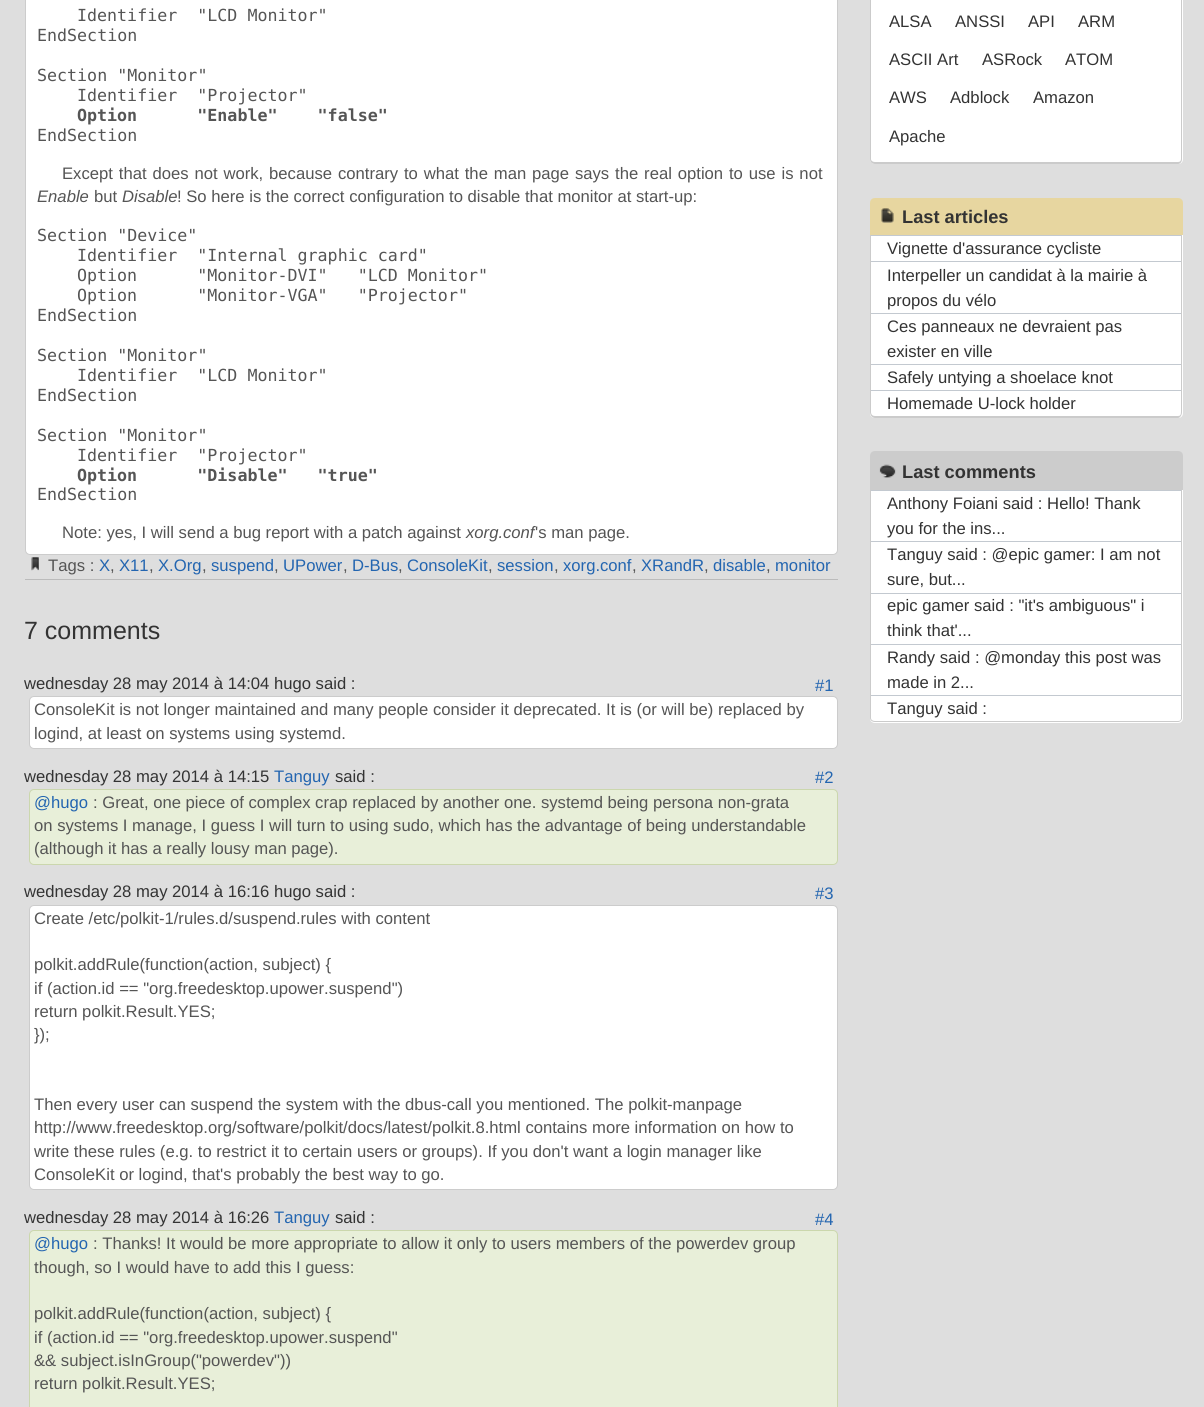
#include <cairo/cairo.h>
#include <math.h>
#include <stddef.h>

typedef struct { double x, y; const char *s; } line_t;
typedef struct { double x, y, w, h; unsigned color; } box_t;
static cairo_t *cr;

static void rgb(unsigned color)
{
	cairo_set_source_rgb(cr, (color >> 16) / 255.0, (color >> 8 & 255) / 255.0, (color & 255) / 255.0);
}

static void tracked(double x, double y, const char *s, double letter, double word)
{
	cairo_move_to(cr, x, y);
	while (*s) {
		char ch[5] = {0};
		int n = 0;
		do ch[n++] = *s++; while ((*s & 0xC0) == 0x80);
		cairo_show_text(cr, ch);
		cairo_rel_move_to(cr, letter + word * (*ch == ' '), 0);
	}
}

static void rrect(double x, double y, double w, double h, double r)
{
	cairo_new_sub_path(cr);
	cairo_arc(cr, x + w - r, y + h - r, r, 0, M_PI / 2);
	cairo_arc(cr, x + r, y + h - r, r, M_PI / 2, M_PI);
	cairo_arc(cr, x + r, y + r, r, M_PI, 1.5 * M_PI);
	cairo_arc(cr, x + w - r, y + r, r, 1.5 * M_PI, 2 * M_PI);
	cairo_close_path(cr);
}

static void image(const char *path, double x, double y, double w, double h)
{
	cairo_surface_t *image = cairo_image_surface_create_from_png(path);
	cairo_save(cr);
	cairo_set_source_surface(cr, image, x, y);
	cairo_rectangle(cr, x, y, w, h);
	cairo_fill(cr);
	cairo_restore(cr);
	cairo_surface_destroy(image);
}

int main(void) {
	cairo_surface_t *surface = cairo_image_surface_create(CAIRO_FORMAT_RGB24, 1204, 1407);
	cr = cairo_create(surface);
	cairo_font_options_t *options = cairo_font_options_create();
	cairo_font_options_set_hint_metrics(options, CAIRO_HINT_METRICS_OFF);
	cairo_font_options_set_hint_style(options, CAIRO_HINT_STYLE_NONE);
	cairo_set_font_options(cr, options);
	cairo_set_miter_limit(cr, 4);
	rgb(0xdedede);
	cairo_paint(cr);
	rgb(0xbbbbbb);
	cairo_rectangle(cr, 25, 579, 813, 1);
	cairo_fill(cr);
	rgb(0xffffff);
	rrect(25.5, -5.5, 812, 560, 4.5);
	cairo_fill_preserve(cr);
	rgb(0xcccccc);
	cairo_set_line_width(cr, 1);
	cairo_stroke(cr);
	image("img/1.png", 31, 557, 8, 14);
	rgb(0xffffff);
	rrect(29.5, 696.5, 808, 52, 4.5);
	cairo_fill_preserve(cr);
	rgb(0xcccccc);
	cairo_stroke(cr);
	rgb(0xe8efd9);
	rrect(29.5, 789.5, 808, 75, 4.5);
	cairo_fill_preserve(cr);
	rgb(0xcbd7ad);
	cairo_stroke(cr);
	rgb(0xffffff);
	rrect(29.5, 905.5, 808, 284, 4.5);
	cairo_fill_preserve(cr);
	rgb(0xcccccc);
	cairo_stroke(cr);
	rgb(0xe8efd9);
	rrect(29.5, 1230.5, 808, 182, 4.5);
	cairo_fill_preserve(cr);
	rgb(0xcbd7ad);
	cairo_stroke(cr);
	rgb(0xffffff);
	cairo_new_path(cr);
	cairo_move_to(cr, 870, -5);
	cairo_line_to(cr, 1183, -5);
	cairo_line_to(cr, 1183, 159);
	cairo_curve_to(cr, 1183, 162, 1181, 164, 1178, 164);
	cairo_line_to(cr, 875, 164);
	cairo_curve_to(cr, 872, 164, 870, 162, 870, 159);
	cairo_close_path(cr);
	cairo_fill(cr);
	rgb(0xcbcbcb);
	cairo_set_fill_rule(cr, CAIRO_FILL_RULE_EVEN_ODD);
	cairo_new_path(cr);
	cairo_move_to(cr, 870, -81);
	cairo_line_to(cr, 1182, -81);
	cairo_line_to(cr, 1182, 159);
	cairo_curve_to(cr, 1182, 162, 1180, 164, 1178, 164);
	cairo_line_to(cr, 875, 164);
	cairo_curve_to(cr, 872, 164, 870, 162, 870, 159);
	cairo_close_path(cr);
	cairo_move_to(cr, 871, -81);
	cairo_line_to(cr, 1181, -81);
	cairo_line_to(cr, 1181, 159);
	cairo_curve_to(cr, 1181, 161, 1180, 162, 1178, 162);
	cairo_line_to(cr, 875, 162);
	cairo_curve_to(cr, 873, 162, 871, 161, 871, 159);
	cairo_close_path(cr);
	cairo_fill(cr);
	rgb(0xe7d6a0);
	cairo_new_path(cr);
	cairo_move_to(cr, 875, 198);
	cairo_line_to(cr, 1178, 198);
	cairo_curve_to(cr, 1181, 198, 1183, 200, 1183, 203);
	cairo_line_to(cr, 1183, 235);
	cairo_line_to(cr, 870, 235);
	cairo_line_to(cr, 870, 203);
	cairo_curve_to(cr, 870, 200, 872, 198, 875, 198);
	cairo_close_path(cr);
	cairo_fill(cr);
	image("img/2.png", 881, 208, 13, 15);
	rgb(0xffffff);
	cairo_new_path(cr);
	cairo_move_to(cr, 870, 235);
	cairo_line_to(cr, 1183, 235);
	cairo_line_to(cr, 1183, 413);
	cairo_curve_to(cr, 1183, 416, 1181, 418, 1178, 418);
	cairo_line_to(cr, 875, 418);
	cairo_curve_to(cr, 872, 418, 870, 416, 870, 413);
	cairo_close_path(cr);
	cairo_fill(cr);
	rgb(0xcbcbcb);
	cairo_new_path(cr);
	cairo_move_to(cr, 870, 235);
	cairo_line_to(cr, 1182, 235);
	cairo_line_to(cr, 1182, 412);
	cairo_curve_to(cr, 1182, 415, 1180, 418, 1178, 418);
	cairo_line_to(cr, 875, 418);
	cairo_curve_to(cr, 872, 418, 870, 415, 870, 412);
	cairo_close_path(cr);
	cairo_move_to(cr, 871, 235);
	cairo_line_to(cr, 1181, 235);
	cairo_line_to(cr, 1181, 412);
	cairo_curve_to(cr, 1181, 415, 1180, 416, 1178, 416);
	cairo_line_to(cr, 875, 416);
	cairo_curve_to(cr, 873, 416, 871, 415, 871, 412);
	cairo_close_path(cr);
	cairo_fill(cr);
	{
		static const box_t items[] = {
			{871, 235, 310, 1, 0xc3c9d0},
			{871, 261, 310, 1, 0xc3c9d0},
			{871, 313, 310, 1, 0xc3c9d0},
			{871, 364, 310, 1, 0xc3c9d0},
			{871, 390, 310, 1, 0xc3c9d0},
		};
		for (size_t i = 0; i < sizeof items / sizeof *items; i++) {
			rgb(items[i].color);
			cairo_rectangle(cr, items[i].x, items[i].y, items[i].w, items[i].h);
			cairo_fill(cr);
		}
	}
	rgb(0xcccccc);
	cairo_new_path(cr);
	cairo_move_to(cr, 875, 451);
	cairo_line_to(cr, 1178, 451);
	cairo_curve_to(cr, 1181, 451, 1183, 453, 1183, 456);
	cairo_line_to(cr, 1183, 490);
	cairo_line_to(cr, 870, 490);
	cairo_line_to(cr, 870, 456);
	cairo_curve_to(cr, 870, 453, 872, 451, 875, 451);
	cairo_close_path(cr);
	cairo_fill(cr);
	image("img/3.png", 879, 464, 17, 14);
	rgb(0xffffff);
	cairo_new_path(cr);
	cairo_move_to(cr, 870, 490);
	cairo_line_to(cr, 1183, 490);
	cairo_line_to(cr, 1183, 718);
	cairo_curve_to(cr, 1183, 721, 1181, 723, 1178, 723);
	cairo_line_to(cr, 875, 723);
	cairo_curve_to(cr, 872, 723, 870, 721, 870, 718);
	cairo_close_path(cr);
	cairo_fill(cr);
	rgb(0xcbcbcb);
	cairo_new_path(cr);
	cairo_move_to(cr, 870, 490);
	cairo_line_to(cr, 1182, 490);
	cairo_line_to(cr, 1182, 718);
	cairo_curve_to(cr, 1182, 720, 1180, 722, 1178, 722);
	cairo_line_to(cr, 875, 722);
	cairo_curve_to(cr, 872, 722, 870, 720, 870, 718);
	cairo_close_path(cr);
	cairo_move_to(cr, 871, 490);
	cairo_line_to(cr, 1181, 490);
	cairo_line_to(cr, 1181, 718);
	cairo_curve_to(cr, 1181, 720, 1180, 721, 1178, 721);
	cairo_line_to(cr, 875, 721);
	cairo_curve_to(cr, 873, 721, 871, 720, 871, 718);
	cairo_close_path(cr);
	cairo_fill(cr);
	{
		static const box_t items[] = {
			{871, 490, 310, 1, 0xc3c9d0},
			{871, 541, 310, 1, 0xc3c9d0},
			{871, 593, 310, 1, 0xc3c9d0},
			{871, 644, 310, 1, 0xc3c9d0},
			{871, 695, 310, 1, 0xc3c9d0},
		};
		for (size_t i = 0; i < sizeof items / sizeof *items; i++) {
			rgb(items[i].color);
			cairo_rectangle(cr, items[i].x, items[i].y, items[i].w, items[i].h);
			cairo_fill(cr);
		}
	}
	cairo_select_font_face(cr, "DejaVu Sans Mono", CAIRO_FONT_SLANT_NORMAL, CAIRO_FONT_WEIGHT_NORMAL);
	cairo_set_font_size(cr, 16.65);
	rgb(0x555555);
	{
		static const line_t items[] = {
			{77, 21, "Identifier  \"LCD Monitor\""},
			{37, 41, "EndSection"},
			{37, 81, "Section \"Monitor\""},
			{77, 101, "Identifier  \"Projector\""},
		};
		for (size_t i = 0; i < sizeof items / sizeof *items; i++) {
			cairo_move_to(cr, items[i].x, items[i].y);
			cairo_show_text(cr, items[i].s);
		}
	}
	cairo_select_font_face(cr, "DejaVu Sans Mono", CAIRO_FONT_SLANT_NORMAL, CAIRO_FONT_WEIGHT_BOLD);
	cairo_move_to(cr, 77, 121);
	cairo_show_text(cr, "Option      \"Enable\"    \"false\"");
	cairo_select_font_face(cr, "DejaVu Sans Mono", CAIRO_FONT_SLANT_NORMAL, CAIRO_FONT_WEIGHT_NORMAL);
	cairo_move_to(cr, 37, 141);
	cairo_show_text(cr, "EndSection");
	cairo_select_font_face(cr, "Liberation Sans", CAIRO_FONT_SLANT_NORMAL, CAIRO_FONT_WEIGHT_NORMAL);
	tracked(62, 179, "Except that does not work, because contrary to what the man page says the real option to use is not", 0, 1.25);
	cairo_select_font_face(cr, "Liberation Sans", CAIRO_FONT_SLANT_ITALIC, CAIRO_FONT_WEIGHT_NORMAL);
	cairo_move_to(cr, 37, 202);
	cairo_show_text(cr, "Enable");
	cairo_select_font_face(cr, "Liberation Sans", CAIRO_FONT_SLANT_NORMAL, CAIRO_FONT_WEIGHT_NORMAL);
	cairo_move_to(cr, 94, 202);
	cairo_show_text(cr, "but");
	cairo_select_font_face(cr, "Liberation Sans", CAIRO_FONT_SLANT_ITALIC, CAIRO_FONT_WEIGHT_NORMAL);
	cairo_move_to(cr, 122, 202);
	cairo_show_text(cr, "Disable");
	cairo_select_font_face(cr, "Liberation Sans", CAIRO_FONT_SLANT_NORMAL, CAIRO_FONT_WEIGHT_NORMAL);
	cairo_move_to(cr, 177, 202);
	cairo_show_text(cr, "! So here is the correct configuration to disable that monitor at start-up:");
	cairo_select_font_face(cr, "DejaVu Sans Mono", CAIRO_FONT_SLANT_NORMAL, CAIRO_FONT_WEIGHT_NORMAL);
	{
		static const line_t items[] = {
			{37, 241, "Section \"Device\""},
			{77, 261, "Identifier  \"Internal graphic card\""},
			{77, 281, "Option      \"Monitor-DVI\"   \"LCD Monitor\""},
			{77, 301, "Option      \"Monitor-VGA\"   \"Projector\""},
			{37, 321, "EndSection"},
			{37, 361, "Section \"Monitor\""},
			{77, 381, "Identifier  \"LCD Monitor\""},
			{37, 401, "EndSection"},
			{37, 441, "Section \"Monitor\""},
			{77, 461, "Identifier  \"Projector\""},
		};
		for (size_t i = 0; i < sizeof items / sizeof *items; i++) {
			cairo_move_to(cr, items[i].x, items[i].y);
			cairo_show_text(cr, items[i].s);
		}
	}
	cairo_select_font_face(cr, "DejaVu Sans Mono", CAIRO_FONT_SLANT_NORMAL, CAIRO_FONT_WEIGHT_BOLD);
	cairo_move_to(cr, 77, 481);
	cairo_show_text(cr, "Option      \"Disable\"   \"true\"");
	cairo_select_font_face(cr, "DejaVu Sans Mono", CAIRO_FONT_SLANT_NORMAL, CAIRO_FONT_WEIGHT_NORMAL);
	cairo_move_to(cr, 37, 500);
	cairo_show_text(cr, "EndSection");
	cairo_select_font_face(cr, "Liberation Sans", CAIRO_FONT_SLANT_NORMAL, CAIRO_FONT_WEIGHT_NORMAL);
	cairo_move_to(cr, 62, 538);
	cairo_show_text(cr, "Note: yes, I will send a bug report with a patch against");
	cairo_select_font_face(cr, "Liberation Sans", CAIRO_FONT_SLANT_ITALIC, CAIRO_FONT_WEIGHT_NORMAL);
	cairo_move_to(cr, 466, 538);
	cairo_show_text(cr, "xorg.conf");
	cairo_select_font_face(cr, "Liberation Sans", CAIRO_FONT_SLANT_NORMAL, CAIRO_FONT_WEIGHT_NORMAL);
	cairo_move_to(cr, 535, 538);
	cairo_show_text(cr, "'s man page.");
	cairo_move_to(cr, 48, 571);
	cairo_show_text(cr, "Tags :");
	rgb(0x2365b0);
	cairo_move_to(cr, 99, 571);
	cairo_show_text(cr, "X");
	rgb(0x555555);
	cairo_move_to(cr, 110, 571);
	cairo_show_text(cr, ",");
	rgb(0x2365b0);
	cairo_move_to(cr, 119, 571);
	cairo_show_text(cr, "X11");
	rgb(0x555555);
	cairo_move_to(cr, 149, 571);
	cairo_show_text(cr, ",");
	rgb(0x2365b0);
	cairo_move_to(cr, 158, 571);
	cairo_show_text(cr, "X.Org");
	rgb(0x555555);
	cairo_move_to(cr, 202, 571);
	cairo_show_text(cr, ",");
	rgb(0x2365b0);
	cairo_move_to(cr, 211, 571);
	cairo_show_text(cr, "suspend");
	rgb(0x555555);
	cairo_move_to(cr, 274, 571);
	cairo_show_text(cr, ",");
	rgb(0x2365b0);
	cairo_move_to(cr, 283, 571);
	cairo_show_text(cr, "UPower");
	rgb(0x555555);
	cairo_move_to(cr, 343, 571);
	cairo_show_text(cr, ",");
	rgb(0x2365b0);
	cairo_move_to(cr, 352, 571);
	cairo_show_text(cr, "D-Bus");
	rgb(0x555555);
	cairo_move_to(cr, 398, 571);
	cairo_show_text(cr, ",");
	rgb(0x2365b0);
	cairo_move_to(cr, 407, 571);
	cairo_show_text(cr, "ConsoleKit");
	rgb(0x555555);
	cairo_move_to(cr, 488, 571);
	cairo_show_text(cr, ",");
	rgb(0x2365b0);
	cairo_move_to(cr, 497, 571);
	cairo_show_text(cr, "session");
	rgb(0x555555);
	cairo_move_to(cr, 554, 571);
	cairo_show_text(cr, ",");
	rgb(0x2365b0);
	cairo_move_to(cr, 563, 571);
	cairo_show_text(cr, "xorg.conf");
	rgb(0x555555);
	cairo_move_to(cr, 632, 571);
	cairo_show_text(cr, ",");
	rgb(0x2365b0);
	cairo_move_to(cr, 641, 571);
	cairo_show_text(cr, "XRandR");
	rgb(0x555555);
	cairo_move_to(cr, 704, 571);
	cairo_show_text(cr, ",");
	rgb(0x2365b0);
	cairo_move_to(cr, 713, 571);
	cairo_show_text(cr, "disable");
	rgb(0x555555);
	cairo_move_to(cr, 766, 571);
	cairo_show_text(cr, ",");
	rgb(0x2365b0);
	cairo_move_to(cr, 775, 571);
	cairo_show_text(cr, "monitor");
	cairo_set_font_size(cr, 25);
	rgb(0x333333);
	cairo_move_to(cr, 24, 639);
	cairo_show_text(cr, "7 comments");
	cairo_set_font_size(cr, 16.65);
	cairo_move_to(cr, 24, 689);
	cairo_show_text(cr, "wednesday 28 may 2014 à 14:04 hugo said :");
	rgb(0x2365b0);
	cairo_move_to(cr, 815, 691);
	cairo_show_text(cr, "#1");
	rgb(0x555555);
	cairo_move_to(cr, 34, 715);
	cairo_show_text(cr, "ConsoleKit is not longer maintained and many people consider it deprecated. It is (or will be) replaced by");
	cairo_move_to(cr, 34, 739);
	cairo_show_text(cr, "logind, at least on systems using systemd.");
	rgb(0x333333);
	cairo_move_to(cr, 24, 782);
	cairo_show_text(cr, "wednesday 28 may 2014 à 14:15");
	rgb(0x2365b0);
	cairo_move_to(cr, 274, 782);
	cairo_show_text(cr, "Tanguy");
	rgb(0x333333);
	cairo_move_to(cr, 335, 782);
	cairo_show_text(cr, "said :");
	rgb(0x2365b0);
	cairo_move_to(cr, 815, 783);
	cairo_show_text(cr, "#2");
	cairo_move_to(cr, 34, 808);
	cairo_show_text(cr, "@hugo");
	rgb(0x555555);
	{
		static const line_t items[] = {
			{93, 808, ": Great, one piece of complex crap replaced by another one. systemd being persona non-grata"},
			{34, 831, "on systems I manage, I guess I will turn to using sudo, which has the advantage of being understandable"},
			{34, 854, "(although it has a really lousy man page)."},
		};
		for (size_t i = 0; i < sizeof items / sizeof *items; i++) {
			cairo_move_to(cr, items[i].x, items[i].y);
			cairo_show_text(cr, items[i].s);
		}
	}
	rgb(0x333333);
	cairo_move_to(cr, 24, 897);
	cairo_show_text(cr, "wednesday 28 may 2014 à 16:16 hugo said :");
	rgb(0x2365b0);
	cairo_move_to(cr, 815, 899);
	cairo_show_text(cr, "#3");
	rgb(0x555555);
	{
		static const line_t items[] = {
			{34, 924, "Create /etc/polkit-1/rules.d/suspend.rules with content"},
			{34, 970, "polkit.addRule(function(action, subject) {"},
			{34, 994, "if (action.id == \"org.freedesktop.upower.suspend\")"},
			{34, 1017, "return polkit.Result.YES;"},
			{34, 1040, "});"},
			{34, 1110, "Then every user can suspend the system with the dbus-call you mentioned. The polkit-manpage"},
			{34, 1133, "http://www.freedesktop.org/software/polkit/docs/latest/polkit.8.html contains more information on how to"},
			{34, 1157, "write these rules (e.g. to restrict it to certain users or groups). If you don't want a login manager like"},
			{34, 1180, "ConsoleKit or logind, that's probably the best way to go."},
		};
		for (size_t i = 0; i < sizeof items / sizeof *items; i++) {
			cairo_move_to(cr, items[i].x, items[i].y);
			cairo_show_text(cr, items[i].s);
		}
	}
	rgb(0x333333);
	cairo_move_to(cr, 24, 1223);
	cairo_show_text(cr, "wednesday 28 may 2014 à 16:26");
	rgb(0x2365b0);
	cairo_move_to(cr, 274, 1223);
	cairo_show_text(cr, "Tanguy");
	rgb(0x333333);
	cairo_move_to(cr, 335, 1223);
	cairo_show_text(cr, "said :");
	rgb(0x2365b0);
	cairo_move_to(cr, 815, 1225);
	cairo_show_text(cr, "#4");
	cairo_move_to(cr, 34, 1249);
	cairo_show_text(cr, "@hugo");
	rgb(0x555555);
	{
		static const line_t items[] = {
			{93, 1249, ": Thanks! It would be more appropriate to allow it only to users members of the powerdev group"},
			{34, 1273, "though, so I would have to add this I guess:"},
			{34, 1319, "polkit.addRule(function(action, subject) {"},
			{34, 1343, "if (action.id == \"org.freedesktop.upower.suspend\""},
			{34, 1366, "&& subject.isInGroup(\"powerdev\"))"},
			{34, 1389, "return polkit.Result.YES;"},
		};
		for (size_t i = 0; i < sizeof items / sizeof *items; i++) {
			cairo_move_to(cr, items[i].x, items[i].y);
			cairo_show_text(cr, items[i].s);
		}
	}
	rgb(0x333333);
	{
		static const line_t items[] = {
			{889, 27, "ALSA"},
			{955, 27, "ANSSI"},
			{1028, 27, "API"},
			{1078, 27, "ARM"},
			{889, 65, "ASCII Art"},
			{982, 65, "ASRock"},
			{1065, 65, "ATOM"},
			{889, 103, "AWS"},
			{950, 103, "Adblock"},
			{1033, 103, "Amazon"},
			{889, 142, "Apache"},
		};
		for (size_t i = 0; i < sizeof items / sizeof *items; i++) {
			cairo_move_to(cr, items[i].x, items[i].y);
			cairo_show_text(cr, items[i].s);
		}
	}
	cairo_select_font_face(cr, "Liberation Sans", CAIRO_FONT_SLANT_NORMAL, CAIRO_FONT_WEIGHT_BOLD);
	cairo_set_font_size(cr, 18.25);
	cairo_move_to(cr, 902, 223);
	cairo_show_text(cr, "Last articles");
	cairo_select_font_face(cr, "Liberation Sans", CAIRO_FONT_SLANT_NORMAL, CAIRO_FONT_WEIGHT_NORMAL);
	cairo_set_font_size(cr, 16.65);
	{
		static const line_t items[] = {
			{887, 254, "Vignette d'assurance cycliste"},
			{887, 281, "Interpeller un candidat à la mairie à"},
			{887, 306, "propos du vélo"},
			{887, 332, "Ces panneaux ne devraient pas"},
			{887, 357, "exister en ville"},
			{887, 383, "Safely untying a shoelace knot"},
			{887, 409, "Homemade U-lock holder"},
		};
		for (size_t i = 0; i < sizeof items / sizeof *items; i++) {
			cairo_move_to(cr, items[i].x, items[i].y);
			cairo_show_text(cr, items[i].s);
		}
	}
	cairo_select_font_face(cr, "Liberation Sans", CAIRO_FONT_SLANT_NORMAL, CAIRO_FONT_WEIGHT_BOLD);
	cairo_set_font_size(cr, 18.25);
	cairo_move_to(cr, 902, 478);
	cairo_show_text(cr, "Last comments");
	cairo_select_font_face(cr, "Liberation Sans", CAIRO_FONT_SLANT_NORMAL, CAIRO_FONT_WEIGHT_NORMAL);
	cairo_set_font_size(cr, 16.65);
	{
		static const line_t items[] = {
			{887, 509, "Anthony Foiani said : Hello! Thank"},
			{887, 534, "you for the ins..."},
			{887, 560, "Tanguy said : @epic gamer: I am not"},
			{887, 585, "sure, but..."},
			{887, 611, "epic gamer said : \"it's ambiguous\" i"},
			{887, 636, "think that'..."},
			{887, 663, "Randy said : @monday this post was"},
			{887, 688, "made in 2..."},
			{887, 714, "Tanguy said :"},
		};
		for (size_t i = 0; i < sizeof items / sizeof *items; i++) {
			cairo_move_to(cr, items[i].x, items[i].y);
			cairo_show_text(cr, items[i].s);
		}
	}
	cairo_surface_write_to_png(surface, "page.png");
	cairo_font_options_destroy(options);
	cairo_destroy(cr);
	cairo_surface_destroy(surface);
	return 0;
}
